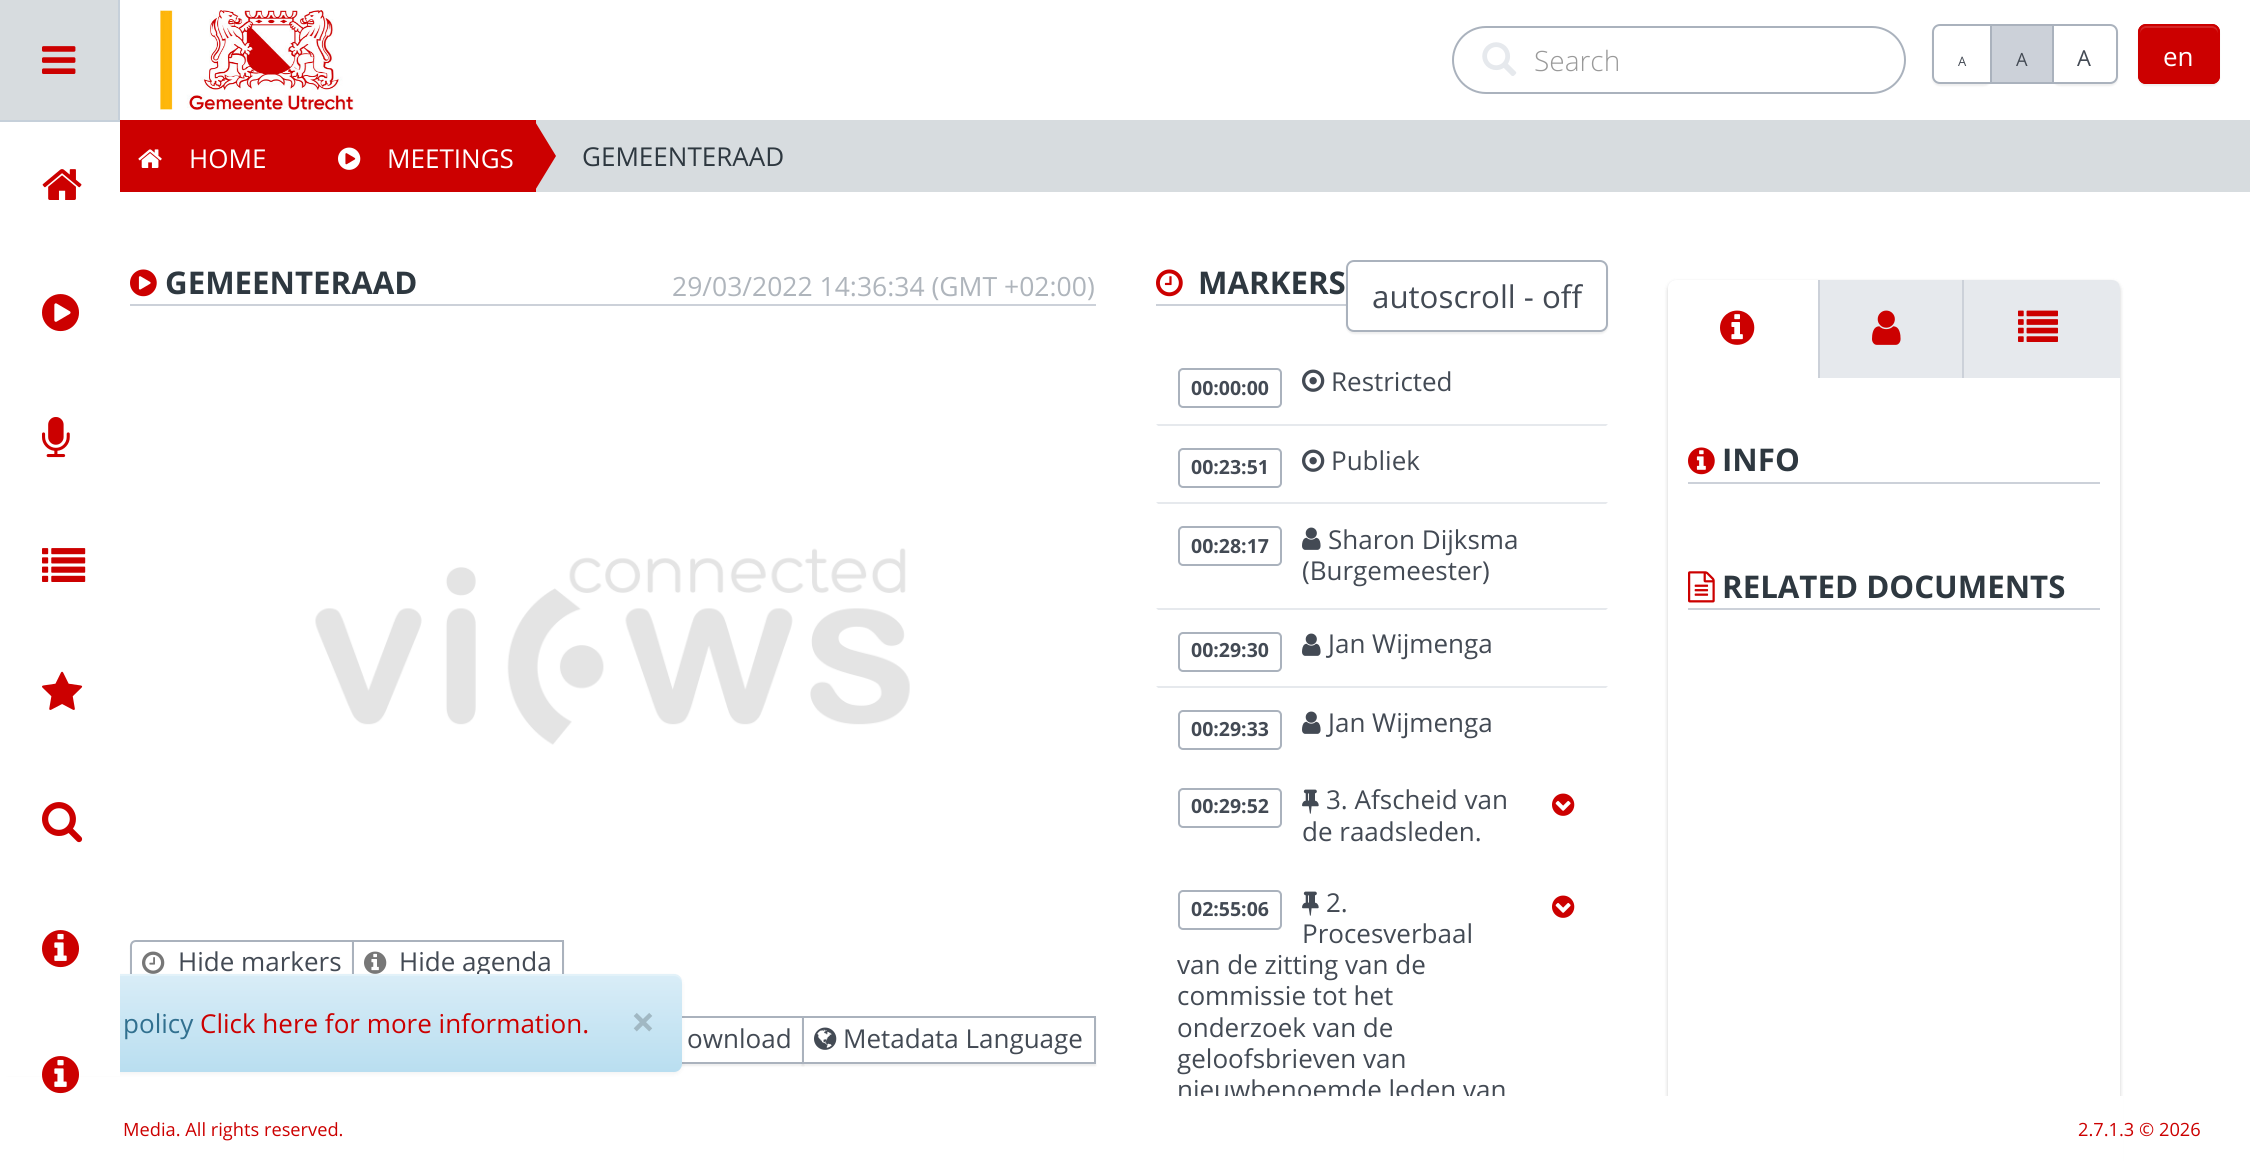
#include <cairo/cairo.h>
#include <math.h>
#include <stddef.h>

typedef struct { double x, y; const char *s; } line_t;
static cairo_t *cr;

static void rgb(unsigned color)
{
	cairo_set_source_rgb(cr, (color >> 16) / 255.0, (color >> 8 & 255) / 255.0, (color & 255) / 255.0);
}

static void rrect(double x, double y, double w, double h, double r)
{
	cairo_new_sub_path(cr);
	cairo_arc(cr, x + w - r, y + h - r, r, 0, M_PI / 2);
	cairo_arc(cr, x + r, y + h - r, r, M_PI / 2, M_PI);
	cairo_arc(cr, x + r, y + r, r, M_PI, 1.5 * M_PI);
	cairo_arc(cr, x + w - r, y + r, r, 1.5 * M_PI, 2 * M_PI);
	cairo_close_path(cr);
}

static void soft_shadow(double x, double y, double w, double h, double r, double blur, double alpha)
{
	cairo_push_group_with_content(cr, CAIRO_CONTENT_ALPHA);
	cairo_set_operator(cr, CAIRO_OPERATOR_SOURCE);
	for (int i = 15; i >= -15 && fmin(w, h) + blur * i / 3 > 0; i -= 2) {
		double e = blur * i / 6;
		cairo_set_source_rgba(cr, 0, 0, 0, alpha * erfc((i - 1) / 8.5) / 2);
		rrect(x - e, y - e, w + 2 * e, h + 2 * e, fmax(0, fmin(r + e + blur * .6, fmin(w, h) / 2 + e)));
		cairo_fill(cr);
	}
	cairo_pattern_t *soft = cairo_pop_group(cr);
	cairo_mask(cr, soft);
	cairo_pattern_destroy(soft);
}

static void image(const char *path, double x, double y, double w, double h)
{
	cairo_surface_t *image = cairo_image_surface_create_from_png(path);
	cairo_save(cr);
	cairo_set_source_surface(cr, image, x, y);
	cairo_rectangle(cr, x, y, w, h);
	cairo_fill(cr);
	cairo_restore(cr);
	cairo_surface_destroy(image);
}

int main(void) {
	cairo_surface_t *surface = cairo_image_surface_create(CAIRO_FORMAT_RGB24, 2250, 1161);
	cr = cairo_create(surface);
	cairo_font_options_t *options = cairo_font_options_create();
	cairo_font_options_set_hint_metrics(options, CAIRO_HINT_METRICS_OFF);
	cairo_font_options_set_hint_style(options, CAIRO_HINT_STYLE_NONE);
	cairo_set_font_options(cr, options);
	cairo_set_miter_limit(cr, 4);
	cairo_pattern_t *gradient;
	rgb(0xffffff);
	cairo_paint(cr);
	rgb(0xc6d0da);
	cairo_rectangle(cr, 118, 0, 2, 120);
	cairo_fill(cr);
	rgb(0xd7dcdf);
	cairo_rectangle(cr, 0, 0, 118, 120);
	cairo_fill(cr);
	image("img/1.png", 42, 46, 34, 28);
	rgb(0xcc0000);
	cairo_rectangle(cr, 120, 122, 166, 68);
	cairo_fill(cr);
	cairo_rectangle(cr, -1, 121, 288, 70);
	cairo_stroke(cr);
	rgb(0xc6d0da);
	cairo_rectangle(cr, 0, 120, 120, 2);
	cairo_fill(cr);
	image("img/9.png", 160, 10, 194, 100);
	rrect(1453, 27, 452, 66, 33);
	rgb(0xaab2bd);
	cairo_stroke(cr);
	image("img/10.png", 1482, 42, 35, 34);
	rgb(0x000000);
	soft_shadow(1932, 26, 60, 60, 8, 1, 0.07);
	rgb(0xffffff);
	cairo_new_path(cr);
	cairo_move_to(cr, 1940, 25);
	cairo_line_to(cr, 1991, 25);
	cairo_line_to(cr, 1991, 83);
	cairo_line_to(cr, 1940, 83);
	cairo_curve_to(cr, 1936, 83, 1933, 80, 1933, 76);
	cairo_line_to(cr, 1933, 32);
	cairo_curve_to(cr, 1933, 28, 1936, 25, 1940, 25);
	cairo_close_path(cr);
	cairo_fill_preserve(cr);
	rgb(0xaab2bd);
	cairo_stroke(cr);
	rgb(0x000000);
	soft_shadow(2052, 26, 66, 60, 8, 1, 0.07);
	rgb(0xffffff);
	cairo_new_path(cr);
	cairo_move_to(cr, 2053, 25);
	cairo_line_to(cr, 2110, 25);
	cairo_curve_to(cr, 2114, 25, 2117, 28, 2117, 32);
	cairo_line_to(cr, 2117, 76);
	cairo_curve_to(cr, 2117, 80, 2114, 83, 2110, 83);
	cairo_line_to(cr, 2053, 83);
	cairo_close_path(cr);
	cairo_fill_preserve(cr);
	rgb(0xaab2bd);
	cairo_stroke(cr);
	rgb(0xccd1d9);
	cairo_rectangle(cr, 1991, 25, 62, 58);
	cairo_fill_preserve(cr);
	rgb(0xaab2bd);
	cairo_stroke(cr);
	rgb(0x000000);
	soft_shadow(2138, 26, 82, 60, 8, 1, 0.07);
	rgb(0xcc0000);
	rrect(2138, 24, 82, 60, 8);
	cairo_fill(cr);
	rgb(0xd42626);
	cairo_new_path(cr);
	cairo_move_to(cr, 2146, 28);
	cairo_line_to(cr, 2212, 28);
	cairo_curve_to(cr, 2215, 28, 2218, 31, 2218, 34);
	cairo_curve_to(cr, 2218, 23, 2210, 26, 2201, 26);
	cairo_line_to(cr, 2157, 26);
	cairo_curve_to(cr, 2148, 26, 2140, 23, 2140, 34);
	cairo_curve_to(cr, 2140, 31, 2143, 28, 2146, 28);
	cairo_close_path(cr);
	cairo_fill(cr);
	rrect(2139, 25, 80, 58, 7);
	rgb(0xcc0000);
	cairo_stroke(cr);
	rgb(0xd7dcdf);
	cairo_rectangle(cr, 536, 120, 1714, 72);
	cairo_fill(cr);
	image("img/11.png", 138, 149, 24, 19);
	rgb(0xcc0000);
	cairo_rectangle(cr, 288, 120, 248, 72);
	cairo_fill(cr);
	image("img/12.png", 338, 147, 23, 23);
	cairo_new_path(cr);
	cairo_move_to(cr, 534, 192);
	cairo_line_to(cr, 534, 120);
	cairo_line_to(cr, 556, 156);
	cairo_close_path(cr);
	cairo_fill(cr);
	rgb(0xccd1d9);
	cairo_rectangle(cr, 130, 304, 966, 2);
	cairo_fill(cr);
	image("img/13.png", 130, 269, 27, 28);
	image("img/14.png", 315, 548, 595, 197);
	rgb(0x000000);
	soft_shadow(130, 942, 224, 46, 6, 1, 0.07);
	rgb(0xffffff);
	cairo_new_path(cr);
	cairo_move_to(cr, 136, 941);
	cairo_line_to(cr, 353, 941);
	cairo_line_to(cr, 353, 985);
	cairo_line_to(cr, 136, 985);
	cairo_curve_to(cr, 133, 985, 131, 983, 131, 980);
	cairo_line_to(cr, 131, 946);
	cairo_curve_to(cr, 131, 943, 133, 941, 136, 941);
	cairo_close_path(cr);
	cairo_fill_preserve(cr);
	rgb(0xaab2bd);
	cairo_stroke(cr);
	image("img/15.png", 142, 951, 23, 23);
	rgb(0x000000);
	soft_shadow(352, 942, 212, 46, 0, 1, 0.07);
	rgb(0xffffff);
	cairo_rectangle(cr, 354, 942, 208, 32);
	cairo_fill(cr);
	cairo_rectangle(cr, 353, 941, 210, 44);
	rgb(0xaab2bd);
	cairo_stroke(cr);
	image("img/16.png", 364, 951, 23, 23);
	rgb(0x000000);
	soft_shadow(626, 1018, 178, 48, 0, 1, 0.07);
	rgb(0xffffff);
	cairo_rectangle(cr, 682, 1018, 120, 44);
	cairo_fill(cr);
	cairo_rectangle(cr, 627, 1017, 176, 46);
	rgb(0xaab2bd);
	cairo_stroke(cr);
	rgb(0x000000);
	soft_shadow(802, 1018, 294, 48, 0, 1, 0.07);
	rgb(0xffffff);
	cairo_rectangle(cr, 803, 1017, 292, 46);
	cairo_fill_preserve(cr);
	rgb(0xaab2bd);
	cairo_stroke(cr);
	image("img/17.png", 814, 1027, 23, 23);
	rgb(0xccd1d9);
	cairo_rectangle(cr, 1156, 304, 190, 2);
	cairo_fill(cr);
	image("img/18.png", 1156, 269, 27, 28);
	rgb(0x000000);
	soft_shadow(1346, 262, 262, 72, 8, 1, 0.07);
	rgb(0xffffff);
	rrect(1347, 261, 260, 70, 7);
	cairo_fill_preserve(cr);
	rgb(0xaab2bd);
	cairo_stroke(cr);
	rrect(1179, 369, 102, 38, 4);
	cairo_stroke(cr);
	image("img/19.png", 1302, 369, 23, 23);
	rgb(0xe6e9ed);
	cairo_new_path(cr);
	cairo_move_to(cr, 1156, 424);
	cairo_line_to(cr, 1608, 424);
	cairo_line_to(cr, 1606, 426);
	cairo_line_to(cr, 1158, 426);
	cairo_close_path(cr);
	cairo_fill(cr);
	rrect(1179, 449, 102, 38, 4);
	rgb(0xaab2bd);
	cairo_stroke(cr);
	image("img/19.png", 1302, 449, 23, 23);
	rgb(0xe6e9ed);
	cairo_new_path(cr);
	cairo_move_to(cr, 1156, 502);
	cairo_line_to(cr, 1608, 502);
	cairo_line_to(cr, 1606, 504);
	cairo_line_to(cr, 1158, 504);
	cairo_close_path(cr);
	cairo_fill(cr);
	rrect(1179, 527, 102, 38, 4);
	rgb(0xaab2bd);
	cairo_stroke(cr);
	image("img/20.png", 1302, 527, 19, 23);
	rgb(0xe6e9ed);
	cairo_new_path(cr);
	cairo_move_to(cr, 1156, 608);
	cairo_line_to(cr, 1608, 608);
	cairo_line_to(cr, 1606, 610);
	cairo_line_to(cr, 1158, 610);
	cairo_close_path(cr);
	cairo_fill(cr);
	rrect(1179, 633, 102, 38, 4);
	rgb(0xaab2bd);
	cairo_stroke(cr);
	image("img/20.png", 1302, 633, 19, 23);
	rgb(0xe6e9ed);
	cairo_new_path(cr);
	cairo_move_to(cr, 1156, 686);
	cairo_line_to(cr, 1608, 686);
	cairo_line_to(cr, 1606, 688);
	cairo_line_to(cr, 1158, 688);
	cairo_close_path(cr);
	cairo_fill(cr);
	rrect(1179, 711, 102, 38, 4);
	rgb(0xaab2bd);
	cairo_stroke(cr);
	image("img/20.png", 1302, 711, 19, 23);
	rrect(1179, 789, 102, 38, 4);
	cairo_stroke(cr);
	image("img/21.png", 1302, 789, 17, 25);
	image("img/22.png", 1552, 793, 23, 23);
	image("img/21.png", 1302, 891, 17, 25);
	rrect(1179, 891, 102, 38, 4);
	cairo_stroke(cr);
	image("img/22.png", 1552, 895, 23, 23);
	rgb(0x000000);
	soft_shadow(1668, 282, 452, 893, 8, 2, 0.2);
	rgb(0xffffff);
	rrect(1668, 280, 452, 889, 8);
	cairo_fill(cr);
	rgb(0xe6e9ed);
	cairo_new_path(cr);
	cairo_move_to(cr, 1676, 280);
	cairo_line_to(cr, 2112, 280);
	cairo_curve_to(cr, 2116.5, 280, 2120, 283.5, 2120, 288);
	cairo_line_to(cr, 2120, 378);
	cairo_line_to(cr, 1668, 378);
	cairo_line_to(cr, 1668, 288);
	cairo_curve_to(cr, 1668, 283.5, 1671.5, 280, 1676, 280);
	cairo_close_path(cr);
	cairo_fill(cr);
	rgb(0xffffff);
	cairo_new_path(cr);
	cairo_move_to(cr, 1676, 280);
	cairo_line_to(cr, 1818, 280);
	cairo_line_to(cr, 1818, 378);
	cairo_line_to(cr, 1668, 378);
	cairo_line_to(cr, 1668, 288);
	cairo_curve_to(cr, 1668, 283.5, 1671.5, 280, 1676, 280);
	cairo_close_path(cr);
	cairo_fill(cr);
	image("img/23.png", 1720, 310, 35, 35);
	rgb(0xccd1d9);
	cairo_rectangle(cr, 1818, 280, 2, 98);
	cairo_fill(cr);
	image("img/24.png", 1872, 310, 29, 35);
	cairo_rectangle(cr, 1962, 280, 2, 98);
	cairo_fill(cr);
	image("img/25.png", 2018, 310, 40, 32);
	cairo_rectangle(cr, 1688, 482, 412, 2);
	cairo_fill(cr);
	image("img/26.png", 1688, 447, 27, 28);
	cairo_rectangle(cr, 1688, 608, 412, 2);
	cairo_fill(cr);
	image("img/27.png", 1688, 571, 27, 32);
	rgb(0x000000);
	soft_shadow(0, 976, 682, 98, 8, 2, 0.05);
	cairo_select_font_face(cr, "Open Sans Light", CAIRO_FONT_SLANT_NORMAL, CAIRO_FONT_WEIGHT_NORMAL);
	cairo_set_font_size(cr, 28);
	rgb(0x999999);
	cairo_move_to(cr, 1534, 71);
	cairo_show_text(cr, "Search");
	cairo_select_font_face(cr, "Open Sans", CAIRO_FONT_SLANT_NORMAL, CAIRO_FONT_WEIGHT_NORMAL);
	cairo_set_font_size(cr, 13);
	rgb(0x434a54);
	cairo_move_to(cr, 1958, 66);
	cairo_show_text(cr, "A");
	cairo_set_font_size(cr, 18.25);
	cairo_move_to(cr, 2016, 66);
	cairo_show_text(cr, "A");
	cairo_set_font_size(cr, 22);
	cairo_move_to(cr, 2077, 66);
	cairo_show_text(cr, "A");
	cairo_set_font_size(cr, 26);
	rgb(0xffffff);
	{
		static const line_t items[] = {
			{2163, 66, "en"},
			{189, 168, "HOME"},
			{387, 168, "MEETINGS"},
		};
		for (size_t i = 0; i < sizeof items / sizeof *items; i++) {
			cairo_move_to(cr, items[i].x, items[i].y);
			cairo_show_text(cr, items[i].s);
		}
	}
	rgb(0x2e3840);
	cairo_move_to(cr, 582, 166);
	cairo_show_text(cr, "GEMEENTERAAD");
	cairo_select_font_face(cr, "Open Sans", CAIRO_FONT_SLANT_NORMAL, CAIRO_FONT_WEIGHT_BOLD);
	cairo_set_font_size(cr, 31.25);
	cairo_move_to(cr, 165, 294);
	cairo_show_text(cr, "GEMEENTERAAD");
	cairo_select_font_face(cr, "Open Sans", CAIRO_FONT_SLANT_NORMAL, CAIRO_FONT_WEIGHT_NORMAL);
	cairo_set_font_size(cr, 26.5);
	rgb(0xafb5bc);
	cairo_move_to(cr, 672, 296);
	cairo_show_text(cr, "29/03/2022 14:36:34 (GMT +02:00)");
	cairo_set_font_size(cr, 26);
	rgb(0x434a54);
	{
		static const line_t items[] = {
			{178, 971, "Hide markers"},
			{399, 971, "Hide agenda"},
			{687, 1048, "ownload"},
			{843, 1048, "Metadata Language"},
		};
		for (size_t i = 0; i < sizeof items / sizeof *items; i++) {
			cairo_move_to(cr, items[i].x, items[i].y);
			cairo_show_text(cr, items[i].s);
		}
	}
	cairo_select_font_face(cr, "Open Sans", CAIRO_FONT_SLANT_NORMAL, CAIRO_FONT_WEIGHT_BOLD);
	cairo_set_font_size(cr, 31.25);
	rgb(0x2e3840);
	cairo_move_to(cr, 1198, 294);
	cairo_show_text(cr, "MARKERS");
	cairo_select_font_face(cr, "Open Sans", CAIRO_FONT_SLANT_NORMAL, CAIRO_FONT_WEIGHT_NORMAL);
	rgb(0x434a54);
	cairo_move_to(cr, 1372, 308);
	cairo_show_text(cr, "autoscroll - off");
	cairo_select_font_face(cr, "Open Sans", CAIRO_FONT_SLANT_NORMAL, CAIRO_FONT_WEIGHT_BOLD);
	cairo_set_font_size(cr, 19.5);
	cairo_move_to(cr, 1191, 395);
	cairo_show_text(cr, "00:00:00");
	cairo_select_font_face(cr, "Open Sans", CAIRO_FONT_SLANT_NORMAL, CAIRO_FONT_WEIGHT_NORMAL);
	cairo_set_font_size(cr, 26);
	cairo_move_to(cr, 1331, 391);
	cairo_show_text(cr, "Restricted");
	cairo_select_font_face(cr, "Open Sans", CAIRO_FONT_SLANT_NORMAL, CAIRO_FONT_WEIGHT_BOLD);
	cairo_set_font_size(cr, 19.5);
	cairo_move_to(cr, 1191, 474);
	cairo_show_text(cr, "00:23:51");
	cairo_select_font_face(cr, "Open Sans", CAIRO_FONT_SLANT_NORMAL, CAIRO_FONT_WEIGHT_NORMAL);
	cairo_set_font_size(cr, 26);
	cairo_move_to(cr, 1331, 470);
	cairo_show_text(cr, "Publiek");
	cairo_select_font_face(cr, "Open Sans", CAIRO_FONT_SLANT_NORMAL, CAIRO_FONT_WEIGHT_BOLD);
	cairo_set_font_size(cr, 19.5);
	cairo_move_to(cr, 1191, 553);
	cairo_show_text(cr, "00:28:17");
	cairo_select_font_face(cr, "Open Sans", CAIRO_FONT_SLANT_NORMAL, CAIRO_FONT_WEIGHT_NORMAL);
	cairo_set_font_size(cr, 26);
	cairo_move_to(cr, 1328, 549);
	cairo_show_text(cr, "Sharon Dijksma");
	cairo_move_to(cr, 1302, 580);
	cairo_show_text(cr, "(Burgemeester)");
	cairo_select_font_face(cr, "Open Sans", CAIRO_FONT_SLANT_NORMAL, CAIRO_FONT_WEIGHT_BOLD);
	cairo_set_font_size(cr, 19.5);
	cairo_move_to(cr, 1191, 657);
	cairo_show_text(cr, "00:29:30");
	cairo_select_font_face(cr, "Open Sans", CAIRO_FONT_SLANT_NORMAL, CAIRO_FONT_WEIGHT_NORMAL);
	cairo_set_font_size(cr, 26);
	cairo_move_to(cr, 1328, 653);
	cairo_show_text(cr, "Jan Wijmenga");
	cairo_select_font_face(cr, "Open Sans", CAIRO_FONT_SLANT_NORMAL, CAIRO_FONT_WEIGHT_BOLD);
	cairo_set_font_size(cr, 19.5);
	cairo_move_to(cr, 1191, 736);
	cairo_show_text(cr, "00:29:33");
	cairo_select_font_face(cr, "Open Sans", CAIRO_FONT_SLANT_NORMAL, CAIRO_FONT_WEIGHT_NORMAL);
	cairo_set_font_size(cr, 26);
	cairo_move_to(cr, 1328, 732);
	cairo_show_text(cr, "Jan Wijmenga");
	cairo_select_font_face(cr, "Open Sans", CAIRO_FONT_SLANT_NORMAL, CAIRO_FONT_WEIGHT_BOLD);
	cairo_set_font_size(cr, 19.5);
	cairo_move_to(cr, 1191, 813);
	cairo_show_text(cr, "00:29:52");
	cairo_select_font_face(cr, "Open Sans", CAIRO_FONT_SLANT_NORMAL, CAIRO_FONT_WEIGHT_NORMAL);
	cairo_set_font_size(cr, 26);
	{
		static const line_t items[] = {
			{1326, 809, "3. Afscheid van"},
			{1302, 841, "de raadsleden."},
			{1326, 912, "2."},
			{1302, 943, "Procesverbaal"},
			{1177, 974, "van de zitting van de"},
			{1177, 1005, "commissie tot het"},
			{1177, 1037, "onderzoek van de"},
			{1177, 1068, "geloofsbrieven van"},
			{1177, 1099, "nieuwbenoemde leden van"},
		};
		for (size_t i = 0; i < sizeof items / sizeof *items; i++) {
			cairo_move_to(cr, items[i].x, items[i].y);
			cairo_show_text(cr, items[i].s);
		}
	}
	cairo_select_font_face(cr, "Open Sans", CAIRO_FONT_SLANT_NORMAL, CAIRO_FONT_WEIGHT_BOLD);
	cairo_set_font_size(cr, 19.5);
	cairo_move_to(cr, 1191, 916);
	cairo_show_text(cr, "02:55:06");
	cairo_set_font_size(cr, 31.25);
	rgb(0x2e3840);
	cairo_move_to(cr, 1722, 471);
	cairo_show_text(cr, "INFO");
	cairo_move_to(cr, 1722, 598);
	cairo_show_text(cr, "RELATED DOCUMENTS");
	gradient = cairo_pattern_create_linear(341, 974, 341, 1072);
	cairo_pattern_add_color_stop_rgba(gradient, 0, 0.851, 0.929, 0.969, 1);
	cairo_pattern_add_color_stop_rgba(gradient, 1, 0.725, 0.871, 0.941, 1);
	cairo_set_source(cr, gradient);
	cairo_pattern_destroy(gradient);
	rrect(0, 974, 682, 98, 8);
	cairo_fill(cr);
	cairo_set_source_rgba(cr, 1, 1, 1, 0.25);
	cairo_new_path(cr);
	cairo_move_to(cr, 8, 976);
	cairo_line_to(cr, 674, 976);
	cairo_curve_to(cr, 678, 976, 682, 980, 682, 984);
	cairo_line_to(cr, 682, 982);
	cairo_curve_to(cr, 682, 978, 678, 974, 674, 974);
	cairo_line_to(cr, 8, 974);
	cairo_curve_to(cr, 4, 974, 0, 978, 0, 982);
	cairo_line_to(cr, 0, 984);
	cairo_curve_to(cr, 0, 980, 4, 976, 8, 976);
	cairo_close_path(cr);
	cairo_fill(cr);
	rgb(0xffffff);
	cairo_rectangle(cr, 0, 122, 120, 954);
	cairo_fill(cr);
	image("img/8.png", 42, 1056, 37, 38);
	image("img/8.png", 42, 930, 37, 38);
	image("img/7.png", 42, 802, 41, 41);
	image("img/6.png", 42, 671, 41, 39);
	image("img/5.png", 42, 548, 44, 34);
	image("img/4.png", 42, 417, 28, 41);
	image("img/3.png", 42, 294, 37, 38);
	image("img/2.png", 42, 169, 40, 31);
	cairo_select_font_face(cr, "Open Sans", CAIRO_FONT_SLANT_NORMAL, CAIRO_FONT_WEIGHT_NORMAL);
	cairo_set_font_size(cr, 26);
	rgb(0x31708f);
	cairo_move_to(cr, 123, 1033);
	cairo_show_text(cr, "policy");
	rgb(0xcc0000);
	cairo_move_to(cr, 200, 1033);
	cairo_show_text(cr, "Click here for more information.");
	cairo_select_font_face(cr, "Open Sans", CAIRO_FONT_SLANT_NORMAL, CAIRO_FONT_WEIGHT_BOLD);
	cairo_set_font_size(cr, 42);
	rgb(0xa1b8c3);
	cairo_move_to(cr, 631, 1037);
	cairo_show_text(cr, "×");
	rgb(0xffffff);
	cairo_rectangle(cr, 1179, 1096, 944, 65);
	cairo_fill(cr);
	cairo_select_font_face(cr, "Open Sans", CAIRO_FONT_SLANT_NORMAL, CAIRO_FONT_WEIGHT_NORMAL);
	cairo_set_font_size(cr, 18.25);
	rgb(0xcc0000);
	cairo_move_to(cr, 123, 1136);
	cairo_show_text(cr, "Media. All rights reserved.");
	cairo_move_to(cr, 2078, 1136);
	cairo_show_text(cr, "2.7.1.3 © 2026");
	cairo_surface_write_to_png(surface, "page.png");
	cairo_font_options_destroy(options);
	cairo_destroy(cr);
	cairo_surface_destroy(surface);
	return 0;
}
